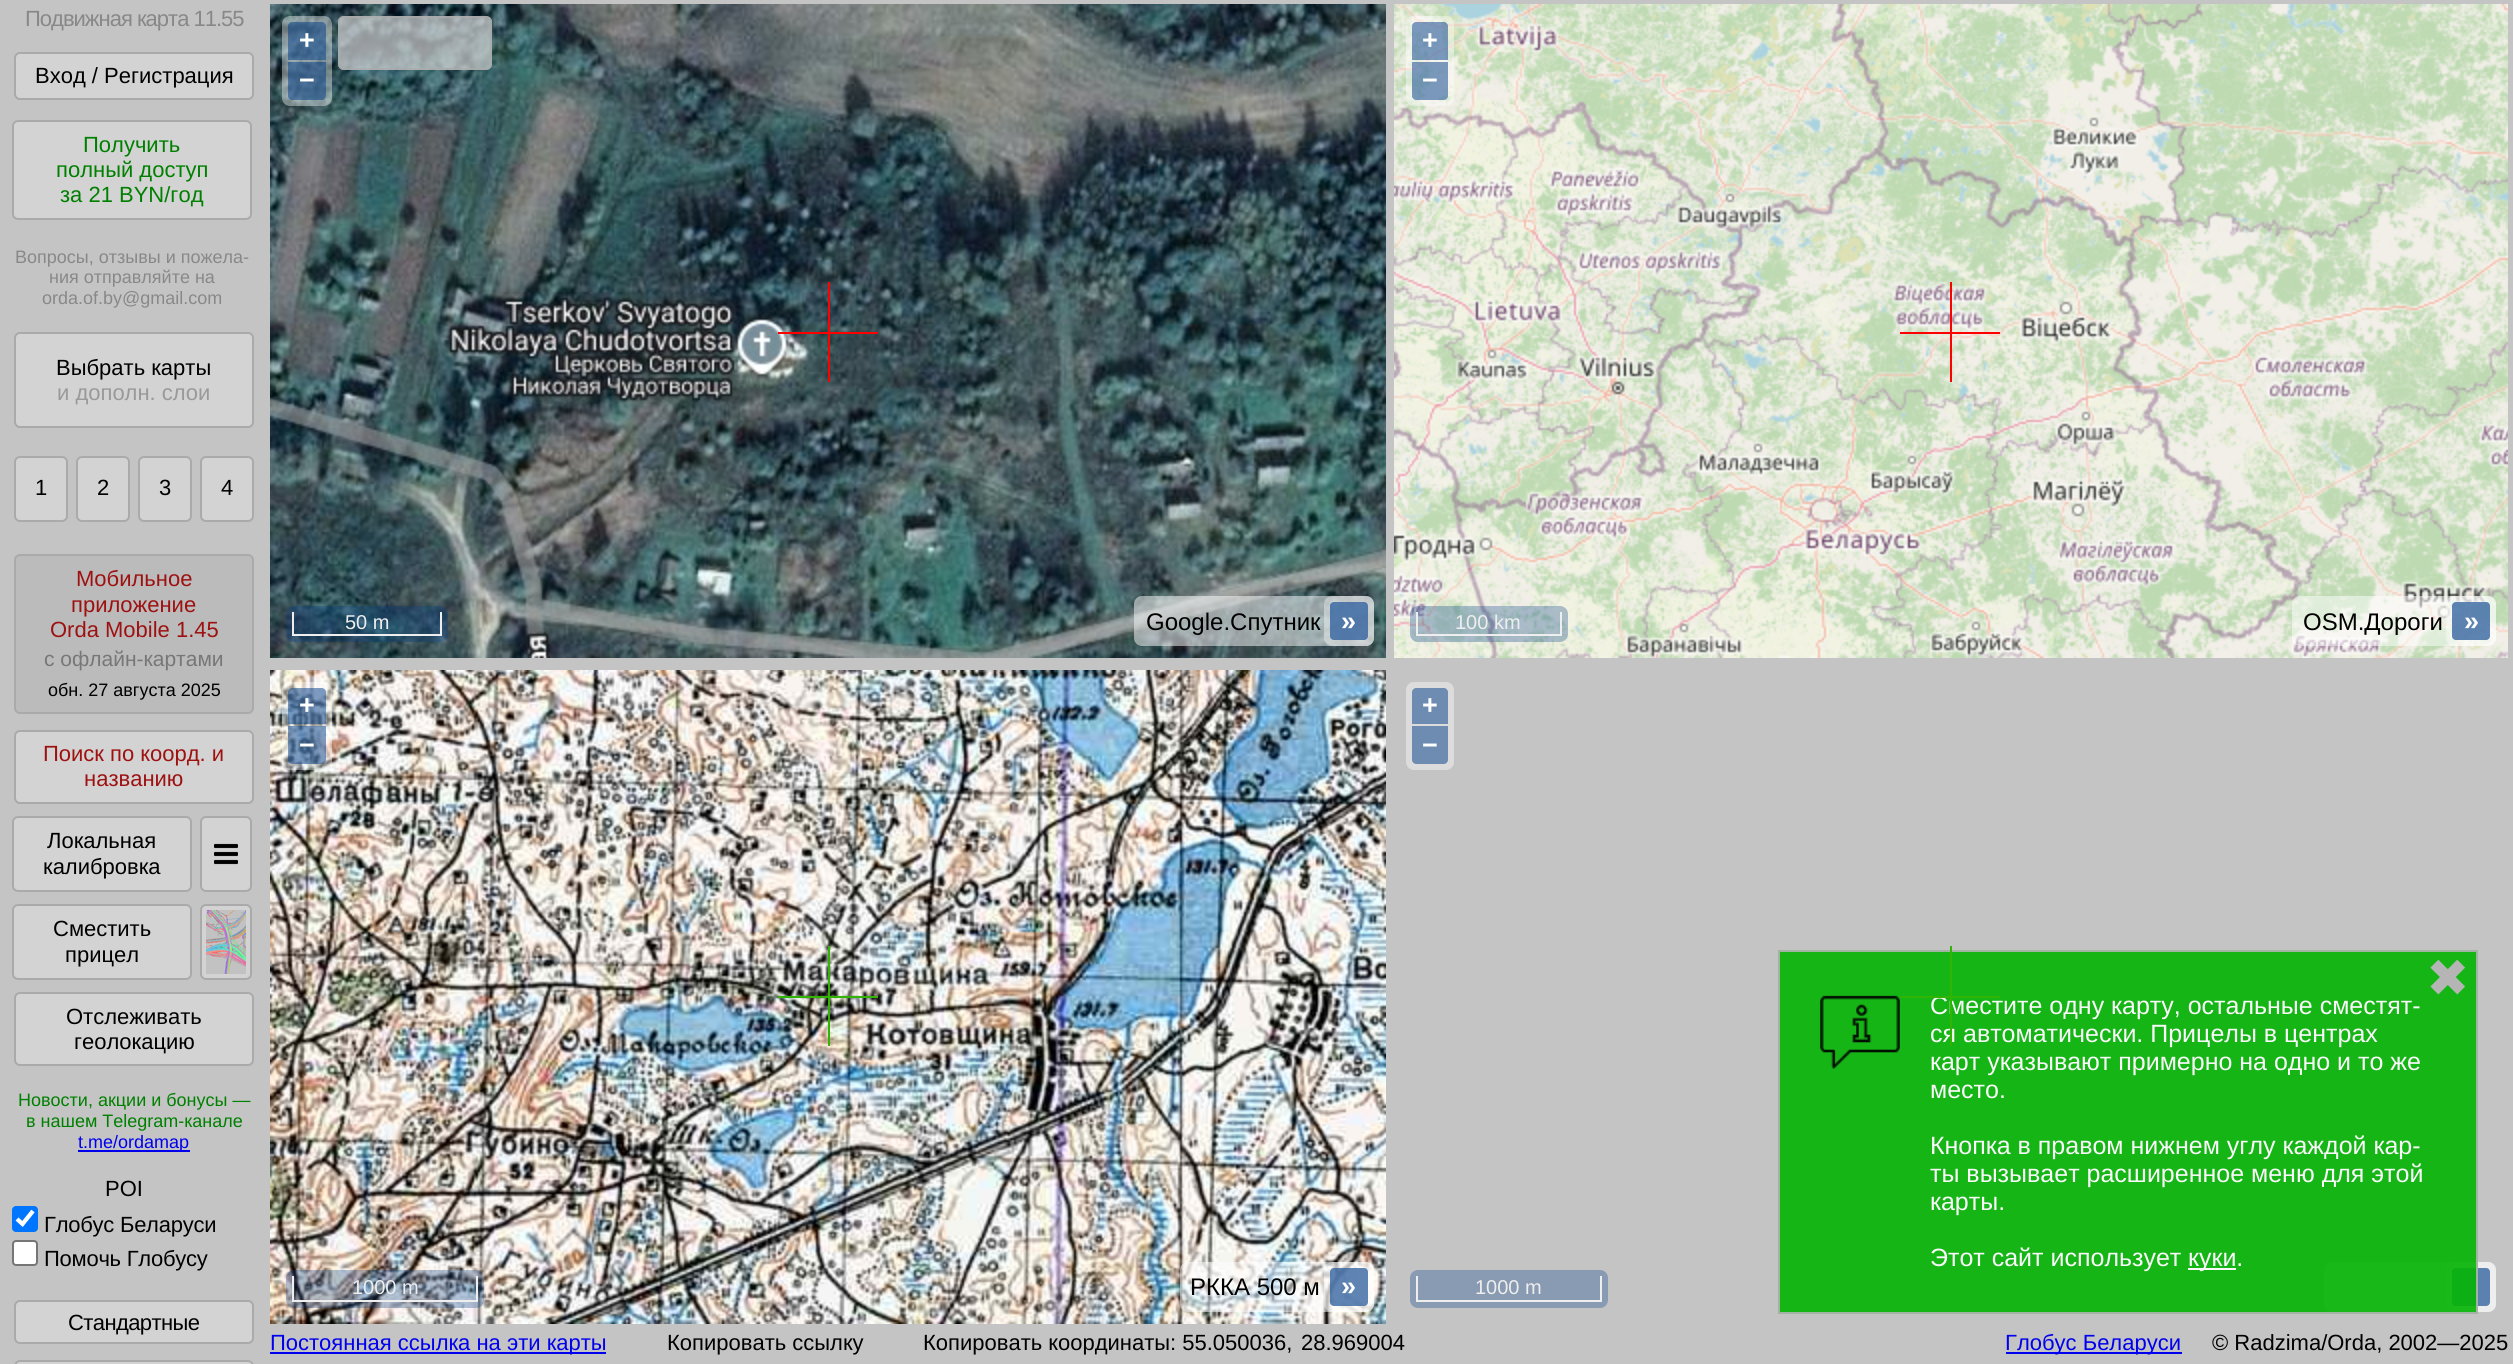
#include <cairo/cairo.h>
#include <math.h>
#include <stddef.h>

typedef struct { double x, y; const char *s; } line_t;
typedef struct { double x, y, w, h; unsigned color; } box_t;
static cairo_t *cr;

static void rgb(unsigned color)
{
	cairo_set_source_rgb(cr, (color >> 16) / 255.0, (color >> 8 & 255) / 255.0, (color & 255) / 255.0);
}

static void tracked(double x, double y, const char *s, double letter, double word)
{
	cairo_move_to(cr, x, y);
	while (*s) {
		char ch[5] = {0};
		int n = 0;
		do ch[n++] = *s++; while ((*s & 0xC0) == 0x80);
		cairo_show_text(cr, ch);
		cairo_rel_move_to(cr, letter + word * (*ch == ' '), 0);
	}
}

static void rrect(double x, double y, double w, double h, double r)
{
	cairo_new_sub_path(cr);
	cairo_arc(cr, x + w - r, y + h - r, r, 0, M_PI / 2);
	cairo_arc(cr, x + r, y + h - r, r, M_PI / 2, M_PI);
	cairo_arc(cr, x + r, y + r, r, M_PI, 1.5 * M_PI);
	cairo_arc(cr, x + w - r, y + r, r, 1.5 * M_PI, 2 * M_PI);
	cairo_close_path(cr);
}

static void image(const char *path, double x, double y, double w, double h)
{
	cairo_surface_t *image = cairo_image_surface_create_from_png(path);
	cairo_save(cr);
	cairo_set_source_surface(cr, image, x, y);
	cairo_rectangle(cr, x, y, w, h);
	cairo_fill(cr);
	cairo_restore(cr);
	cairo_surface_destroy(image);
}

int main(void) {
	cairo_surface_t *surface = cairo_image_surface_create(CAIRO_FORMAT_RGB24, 2513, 1364);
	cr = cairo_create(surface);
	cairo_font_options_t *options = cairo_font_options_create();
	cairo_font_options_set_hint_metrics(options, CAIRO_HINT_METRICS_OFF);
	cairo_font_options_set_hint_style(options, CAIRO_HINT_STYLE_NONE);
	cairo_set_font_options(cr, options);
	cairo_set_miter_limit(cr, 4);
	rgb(0xc4c4c4);
	cairo_paint(cr);
	rgb(0xd3d3d3);
	rrect(15, 53, 238, 46, 5);
	cairo_fill_preserve(cr);
	rgb(0xaaaaaa);
	cairo_stroke(cr);
	rgb(0xd3d3d3);
	rrect(13, 121, 238, 98, 5);
	cairo_fill_preserve(cr);
	rgb(0xaaaaaa);
	cairo_stroke(cr);
	rgb(0xd3d3d3);
	rrect(15, 333, 238, 94, 5);
	cairo_fill_preserve(cr);
	rgb(0xaaaaaa);
	cairo_stroke(cr);
	rgb(0xd3d3d3);
	rrect(15, 457, 52, 64, 5);
	cairo_fill_preserve(cr);
	rgb(0xaaaaaa);
	cairo_stroke(cr);
	rgb(0xd3d3d3);
	rrect(77, 457, 52, 64, 5);
	cairo_fill_preserve(cr);
	rgb(0xaaaaaa);
	cairo_stroke(cr);
	rgb(0xd3d3d3);
	rrect(139, 457, 52, 64, 5);
	cairo_fill_preserve(cr);
	rgb(0xaaaaaa);
	cairo_stroke(cr);
	rgb(0xd3d3d3);
	rrect(201, 457, 52, 64, 5);
	cairo_fill_preserve(cr);
	rgb(0xaaaaaa);
	cairo_stroke(cr);
	rgb(0xbbbbbb);
	rrect(15, 555, 238, 158, 5);
	cairo_fill_preserve(cr);
	rgb(0xaaaaaa);
	cairo_stroke(cr);
	rgb(0xd3d3d3);
	rrect(15, 731, 238, 72, 5);
	cairo_fill_preserve(cr);
	rgb(0xaaaaaa);
	cairo_stroke(cr);
	rgb(0xd3d3d3);
	rrect(13, 817, 178, 74, 5);
	cairo_fill_preserve(cr);
	rgb(0xaaaaaa);
	cairo_stroke(cr);
	rgb(0xd3d3d3);
	rrect(201, 817, 50, 74, 5);
	cairo_fill_preserve(cr);
	rgb(0xaaaaaa);
	cairo_stroke(cr);
	image("img/1.png", 214, 843, 24, 22);
	rgb(0xd3d3d3);
	rrect(13, 905, 178, 74, 5);
	cairo_fill_preserve(cr);
	rgb(0xaaaaaa);
	cairo_stroke(cr);
	rgb(0xd3d3d3);
	rrect(201, 905, 50, 74, 5);
	cairo_fill_preserve(cr);
	rgb(0xaaaaaa);
	cairo_stroke(cr);
	image("img/2.png", 206, 910, 40, 64);
	rgb(0xd3d3d3);
	rrect(15, 993, 238, 72, 5);
	cairo_fill_preserve(cr);
	rgb(0xaaaaaa);
	cairo_stroke(cr);
	rgb(0x0000ee);
	cairo_rectangle(cr, 78, 1150, 112, 2);
	cairo_fill(cr);
	rgb(0x0075ff);
	rrect(12, 1206, 26, 26, 4);
	cairo_fill(cr);
	cairo_new_path(cr);
	cairo_move_to(cr, 17, 1219);
	cairo_line_to(cr, 22.5, 1224);
	cairo_line_to(cr, 33, 1211);
	rgb(0xffffff);
	cairo_set_line_width(cr, 4.2);
	cairo_stroke(cr);
	rrect(13, 1241, 24, 24, 3);
	cairo_fill_preserve(cr);
	rgb(0x767676);
	cairo_set_line_width(cr, 2);
	cairo_stroke(cr);
	rgb(0xd3d3d3);
	rrect(15, 1301, 238, 42, 5);
	cairo_fill_preserve(cr);
	rgb(0xaaaaaa);
	cairo_stroke(cr);
	rgb(0xd3d3d3);
	cairo_new_path(cr);
	cairo_move_to(cr, 20, 1360);
	cairo_line_to(cr, 248, 1360);
	cairo_curve_to(cr, 251.5, 1360, 254, 1362.5, 254, 1366);
	cairo_line_to(cr, 254, 1364);
	cairo_line_to(cr, 14, 1364);
	cairo_line_to(cr, 14, 1366);
	cairo_curve_to(cr, 14, 1362.5, 16.5, 1360, 20, 1360);
	cairo_close_path(cr);
	cairo_fill(cr);
	rrect(15, 1361, 238, 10, 5);
	rgb(0xaaaaaa);
	cairo_stroke(cr);
	image("img/3.png", 270, 4, 1116, 654);
	cairo_set_source_rgba(cr, 0.827, 0.827, 0.827, 0.7);
	rrect(338, 16, 154, 54, 6);
	cairo_fill(cr);
	rrect(339, 17, 152, 52, 5);
	cairo_set_source_rgba(cr, 0.667, 0.667, 0.667, 0.7);
	cairo_stroke(cr);
	cairo_set_source_rgba(cr, 1, 1, 1, 0.4);
	rrect(282, 16, 50, 90, 8);
	cairo_fill(cr);
	cairo_set_source_rgba(cr, 0, 0.235, 0.533, 0.5);
	cairo_new_path(cr);
	cairo_move_to(cr, 292, 22);
	cairo_line_to(cr, 322, 22);
	cairo_curve_to(cr, 324, 22, 326, 24, 326, 26);
	cairo_line_to(cr, 326, 60);
	cairo_line_to(cr, 288, 60);
	cairo_line_to(cr, 288, 26);
	cairo_curve_to(cr, 288, 24, 290, 22, 292, 22);
	cairo_close_path(cr);
	cairo_fill(cr);
	cairo_new_path(cr);
	cairo_move_to(cr, 288, 62);
	cairo_line_to(cr, 326, 62);
	cairo_line_to(cr, 326, 96);
	cairo_curve_to(cr, 326, 98, 324, 100, 322, 100);
	cairo_line_to(cr, 292, 100);
	cairo_curve_to(cr, 290, 100, 288, 98, 288, 96);
	cairo_close_path(cr);
	cairo_fill(cr);
	cairo_set_source_rgba(cr, 1, 1, 1, 0.4);
	rrect(1324, 596, 50, 50, 8);
	cairo_fill(cr);
	cairo_set_source_rgba(cr, 0, 0.235, 0.533, 0.5);
	rrect(1330, 602, 38, 38, 4);
	cairo_fill(cr);
	cairo_set_source_rgba(cr, 0, 0.235, 0.533, 0.3);
	rrect(286, 606, 162, 36, 8);
	cairo_fill(cr);
	{
		static const box_t items[] = {
			{440, 612, 2, 24, 0xeeeeee},
			{292, 634, 150, 2, 0xeeeeee},
			{292, 612, 2, 24, 0xeeeeee},
		};
		for (size_t i = 0; i < sizeof items / sizeof *items; i++) {
			rgb(items[i].color);
			cairo_rectangle(cr, items[i].x, items[i].y, items[i].w, items[i].h);
			cairo_fill(cr);
		}
	}
	cairo_set_source_rgba(cr, 1, 1, 1, 0.5);
	rrect(1134, 596, 240, 50, 8);
	cairo_fill(cr);
	cairo_set_source_rgba(cr, 0, 0.235, 0.533, 0.5);
	rrect(1330, 602, 38, 38, 4);
	cairo_fill(cr);
	rgb(0xff0000);
	cairo_rectangle(cr, 828, 282, 2, 100);
	cairo_fill(cr);
	cairo_rectangle(cr, 778, 332, 100, 2);
	cairo_fill(cr);
	image("img/4.png", 1394, 4, 1114, 654);
	cairo_set_source_rgba(cr, 1, 1, 1, 0.4);
	rrect(1406, 16, 48, 90, 8);
	cairo_fill(cr);
	cairo_set_source_rgba(cr, 0, 0.235, 0.533, 0.5);
	cairo_new_path(cr);
	cairo_move_to(cr, 1416, 22);
	cairo_line_to(cr, 1444, 22);
	cairo_curve_to(cr, 1446, 22, 1448, 24, 1448, 26);
	cairo_line_to(cr, 1448, 60);
	cairo_line_to(cr, 1412, 60);
	cairo_line_to(cr, 1412, 26);
	cairo_curve_to(cr, 1412, 24, 1414, 22, 1416, 22);
	cairo_close_path(cr);
	cairo_fill(cr);
	cairo_new_path(cr);
	cairo_move_to(cr, 1412, 62);
	cairo_line_to(cr, 1448, 62);
	cairo_line_to(cr, 1448, 96);
	cairo_curve_to(cr, 1448, 98, 1446, 100, 1444, 100);
	cairo_line_to(cr, 1416, 100);
	cairo_curve_to(cr, 1414, 100, 1412, 98, 1412, 96);
	cairo_close_path(cr);
	cairo_fill(cr);
	cairo_set_source_rgba(cr, 1, 1, 1, 0.4);
	rrect(2446, 596, 50, 50, 8);
	cairo_fill(cr);
	cairo_set_source_rgba(cr, 0, 0.235, 0.533, 0.5);
	rrect(2452, 602, 38, 38, 4);
	cairo_fill(cr);
	cairo_set_source_rgba(cr, 0, 0.235, 0.533, 0.3);
	rrect(1410, 606, 158, 36, 8);
	cairo_fill(cr);
	{
		static const box_t items[] = {
			{1560, 612, 2, 24, 0xeeeeee},
			{1416, 634, 146, 2, 0xeeeeee},
			{1416, 612, 2, 24, 0xeeeeee},
		};
		for (size_t i = 0; i < sizeof items / sizeof *items; i++) {
			rgb(items[i].color);
			cairo_rectangle(cr, items[i].x, items[i].y, items[i].w, items[i].h);
			cairo_fill(cr);
		}
	}
	cairo_set_source_rgba(cr, 1, 1, 1, 0.5);
	rrect(2292, 596, 204, 50, 8);
	cairo_fill(cr);
	cairo_set_source_rgba(cr, 0, 0.235, 0.533, 0.5);
	rrect(2452, 602, 38, 38, 4);
	cairo_fill(cr);
	rgb(0xff0000);
	cairo_rectangle(cr, 1950, 282, 2, 100);
	cairo_fill(cr);
	cairo_rectangle(cr, 1900, 332, 100, 2);
	cairo_fill(cr);
	image("img/5.png", 270, 670, 1116, 654);
	cairo_set_source_rgba(cr, 1, 1, 1, 0.4);
	rrect(282, 682, 50, 88, 8);
	cairo_fill(cr);
	cairo_set_source_rgba(cr, 0, 0.235, 0.533, 0.5);
	cairo_new_path(cr);
	cairo_move_to(cr, 292, 688);
	cairo_line_to(cr, 322, 688);
	cairo_curve_to(cr, 324, 688, 326, 690, 326, 692);
	cairo_line_to(cr, 326, 724);
	cairo_line_to(cr, 288, 724);
	cairo_line_to(cr, 288, 692);
	cairo_curve_to(cr, 288, 690, 290, 688, 292, 688);
	cairo_close_path(cr);
	cairo_fill(cr);
	cairo_new_path(cr);
	cairo_move_to(cr, 288, 726);
	cairo_line_to(cr, 326, 726);
	cairo_line_to(cr, 326, 760);
	cairo_curve_to(cr, 326, 762, 324, 764, 322, 764);
	cairo_line_to(cr, 292, 764);
	cairo_curve_to(cr, 290, 764, 288, 762, 288, 760);
	cairo_close_path(cr);
	cairo_fill(cr);
	cairo_set_source_rgba(cr, 1, 1, 1, 0.4);
	rrect(1324, 1262, 50, 50, 8);
	cairo_fill(cr);
	cairo_set_source_rgba(cr, 0, 0.235, 0.533, 0.5);
	rrect(1330, 1268, 38, 38, 4);
	cairo_fill(cr);
	cairo_set_source_rgba(cr, 0, 0.235, 0.533, 0.3);
	rrect(286, 1270, 198, 38, 8);
	cairo_fill(cr);
	{
		static const box_t items[] = {
			{476, 1276, 2, 26, 0xeeeeee},
			{292, 1300, 186, 2, 0xeeeeee},
			{292, 1276, 2, 26, 0xeeeeee},
		};
		for (size_t i = 0; i < sizeof items / sizeof *items; i++) {
			rgb(items[i].color);
			cairo_rectangle(cr, items[i].x, items[i].y, items[i].w, items[i].h);
			cairo_fill(cr);
		}
	}
	cairo_set_source_rgba(cr, 1, 1, 1, 0.5);
	rrect(1180, 1262, 194, 50, 8);
	cairo_fill(cr);
	cairo_set_source_rgba(cr, 0, 0.235, 0.533, 0.5);
	rrect(1330, 1268, 38, 38, 4);
	cairo_fill(cr);
	rgb(0x31b404);
	cairo_rectangle(cr, 828, 946, 2, 100);
	cairo_fill(cr);
	cairo_rectangle(cr, 778, 996, 100, 2);
	cairo_fill(cr);
	rgb(0xdcdcdc);
	rrect(1406, 682, 48, 88, 8);
	cairo_fill(cr);
	rgb(0x6e8cb2);
	cairo_new_path(cr);
	cairo_move_to(cr, 1416, 688);
	cairo_line_to(cr, 1444, 688);
	cairo_curve_to(cr, 1446, 688, 1448, 690, 1448, 692);
	cairo_line_to(cr, 1448, 724);
	cairo_line_to(cr, 1412, 724);
	cairo_line_to(cr, 1412, 692);
	cairo_curve_to(cr, 1412, 690, 1414, 688, 1416, 688);
	cairo_close_path(cr);
	cairo_fill(cr);
	cairo_new_path(cr);
	cairo_move_to(cr, 1412, 726);
	cairo_line_to(cr, 1448, 726);
	cairo_line_to(cr, 1448, 760);
	cairo_curve_to(cr, 1448, 762, 1446, 764, 1444, 764);
	cairo_line_to(cr, 1416, 764);
	cairo_curve_to(cr, 1414, 764, 1412, 762, 1412, 760);
	cairo_close_path(cr);
	cairo_fill(cr);
	rgb(0xdcdcdc);
	rrect(2446, 1262, 50, 50, 8);
	cairo_fill(cr);
	rgb(0x6e8cb2);
	rrect(2452, 1268, 38, 38, 4);
	cairo_fill(cr);
	cairo_set_source_rgba(cr, 1, 1, 1, 0.5);
	rrect(2324, 1262, 172, 50, 8);
	cairo_fill(cr);
	cairo_set_source_rgba(cr, 0, 0.235, 0.533, 0.5);
	rrect(2452, 1268, 38, 38, 4);
	cairo_fill(cr);
	rgb(0x899bb2);
	rrect(1410, 1270, 198, 38, 8);
	cairo_fill(cr);
	rgb(0xeeeeee);
	cairo_rectangle(cr, 1600, 1276, 2, 26);
	cairo_fill(cr);
	cairo_rectangle(cr, 1416, 1300, 186, 2);
	cairo_fill(cr);
	cairo_rectangle(cr, 1416, 1276, 2, 26);
	cairo_fill(cr);
	rgb(0x0000ee);
	cairo_rectangle(cr, 270, 1352, 336, 2);
	cairo_fill(cr);
	cairo_rectangle(cr, 2006, 1352, 176, 2);
	cairo_fill(cr);
	cairo_set_source_rgba(cr, 0.016, 0.706, 0.016, 0.9);
	cairo_rectangle(cr, 1778, 950, 700, 364);
	cairo_fill(cr);
	cairo_rectangle(cr, 1779, 951, 698, 362);
	cairo_set_source_rgba(cr, 0.702, 0.702, 0.702, 0.9);
	cairo_stroke(cr);
	image("img/6.png", 1820, 995, 80, 74);
	rgb(0xf9f9f9);
	cairo_rectangle(cr, 2188, 1268, 48, 2);
	cairo_fill(cr);
	cairo_select_font_face(cr, "Liberation Sans", CAIRO_FONT_SLANT_NORMAL, CAIRO_FONT_WEIGHT_NORMAL);
	cairo_set_font_size(cr, 22);
	rgb(0x888888);
	tracked(25, 26, "Подвижная карта 11.55", -1, 0);
	rgb(0x000000);
	cairo_move_to(cr, 35, 83);
	cairo_show_text(cr, "Вход / Регистрация");
	rgb(0x008000);
	{
		static const line_t items[] = {
			{83, 152, "Получить"},
			{56, 177, "полный доступ"},
			{60, 202, "за 21 BYN/год"},
		};
		for (size_t i = 0; i < sizeof items / sizeof *items; i++) {
			cairo_move_to(cr, items[i].x, items[i].y);
			cairo_show_text(cr, items[i].s);
		}
	}
	cairo_set_font_size(cr, 18);
	rgb(0x888888);
	{
		static const line_t items[] = {
			{15, 263, "Вопросы, отзывы и пожела-"},
			{49, 283, "ния отправляйте на"},
			{42, 304, "orda.of.by@gmail.com"},
		};
		for (size_t i = 0; i < sizeof items / sizeof *items; i++) {
			cairo_move_to(cr, items[i].x, items[i].y);
			cairo_show_text(cr, items[i].s);
		}
	}
	cairo_set_font_size(cr, 22);
	rgb(0x000000);
	cairo_move_to(cr, 56, 375);
	cairo_show_text(cr, "Выбрать карты");
	rgb(0x999999);
	cairo_move_to(cr, 57, 400);
	cairo_show_text(cr, "и дополн. слои");
	rgb(0x000000);
	{
		static const line_t items[] = {
			{35, 495, "1"},
			{97, 495, "2"},
			{159, 495, "3"},
			{221, 495, "4"},
		};
		for (size_t i = 0; i < sizeof items / sizeof *items; i++) {
			cairo_move_to(cr, items[i].x, items[i].y);
			cairo_show_text(cr, items[i].s);
		}
	}
	rgb(0x9e1111);
	{
		static const line_t items[] = {
			{76, 586, "Мобильное"},
			{71, 612, "приложение"},
			{50, 637, "Orda Mobile 1.45"},
		};
		for (size_t i = 0; i < sizeof items / sizeof *items; i++) {
			cairo_move_to(cr, items[i].x, items[i].y);
			cairo_show_text(cr, items[i].s);
		}
	}
	cairo_set_font_size(cr, 21);
	rgb(0x777777);
	cairo_move_to(cr, 44, 666);
	cairo_show_text(cr, "с офлайн-картами");
	cairo_set_font_size(cr, 18);
	rgb(0x000000);
	cairo_move_to(cr, 48, 696);
	cairo_show_text(cr, "обн. 27 августа 2025");
	cairo_set_font_size(cr, 22);
	rgb(0x9e1111);
	cairo_move_to(cr, 43, 761);
	cairo_show_text(cr, "Поиск по коорд. и");
	cairo_move_to(cr, 84, 786);
	cairo_show_text(cr, "названию");
	rgb(0x000000);
	{
		static const line_t items[] = {
			{47, 848, "Локальная"},
			{43, 874, "калибровка"},
			{53, 936, "Сместить"},
			{65, 962, "прицел"},
			{66, 1024, "Отслеживать"},
			{74, 1049, "геолокацию"},
		};
		for (size_t i = 0; i < sizeof items / sizeof *items; i++) {
			cairo_move_to(cr, items[i].x, items[i].y);
			cairo_show_text(cr, items[i].s);
		}
	}
	cairo_set_font_size(cr, 18);
	rgb(0x008000);
	cairo_move_to(cr, 18, 1106);
	cairo_show_text(cr, "Новости, акции и бонусы —");
	cairo_move_to(cr, 26, 1127);
	cairo_show_text(cr, "в нашем Telegram-канале");
	rgb(0x0000ee);
	cairo_move_to(cr, 78, 1148);
	cairo_show_text(cr, "t.me/ordamap");
	cairo_set_font_size(cr, 22);
	rgb(0x000000);
	cairo_move_to(cr, 105, 1196);
	cairo_show_text(cr, "POI");
	tracked(44, 1232, "Глобус Беларуси", -0.25, 0);
	tracked(44, 1266, "Помочь Глобусу", -0.25, 0);
	tracked(68, 1330, "Стандартные", -0.6, 0);
	cairo_select_font_face(cr, "Liberation Sans", CAIRO_FONT_SLANT_NORMAL, CAIRO_FONT_WEIGHT_BOLD);
	cairo_set_font_size(cr, 27);
	rgb(0xffffff);
	cairo_move_to(cr, 299, 49);
	cairo_show_text(cr, "+");
	cairo_move_to(cr, 299, 89);
	cairo_show_text(cr, "−");
	cairo_select_font_face(cr, "Liberation Sans", CAIRO_FONT_SLANT_NORMAL, CAIRO_FONT_WEIGHT_NORMAL);
	cairo_set_font_size(cr, 20);
	rgb(0xeeeeee);
	cairo_move_to(cr, 345, 629);
	cairo_show_text(cr, "50 m");
	cairo_set_font_size(cr, 24);
	rgb(0x000000);
	cairo_move_to(cr, 1146, 630);
	cairo_show_text(cr, "Google.Спутник");
	cairo_select_font_face(cr, "Liberation Sans", CAIRO_FONT_SLANT_NORMAL, CAIRO_FONT_WEIGHT_BOLD);
	cairo_set_font_size(cr, 27);
	rgb(0xffffff);
	{
		static const line_t items[] = {
			{1341, 630, "»"},
			{1422, 49, "+"},
			{1422, 89, "−"},
		};
		for (size_t i = 0; i < sizeof items / sizeof *items; i++) {
			cairo_move_to(cr, items[i].x, items[i].y);
			cairo_show_text(cr, items[i].s);
		}
	}
	cairo_select_font_face(cr, "Liberation Sans", CAIRO_FONT_SLANT_NORMAL, CAIRO_FONT_WEIGHT_NORMAL);
	cairo_set_font_size(cr, 20);
	rgb(0xeeeeee);
	cairo_move_to(cr, 1455, 629);
	cairo_show_text(cr, "100 km");
	cairo_set_font_size(cr, 24);
	rgb(0x000000);
	cairo_move_to(cr, 2303, 630);
	cairo_show_text(cr, "OSM.Дороги");
	cairo_select_font_face(cr, "Liberation Sans", CAIRO_FONT_SLANT_NORMAL, CAIRO_FONT_WEIGHT_BOLD);
	cairo_set_font_size(cr, 27);
	rgb(0xffffff);
	{
		static const line_t items[] = {
			{2464, 630, "»"},
			{299, 714, "+"},
			{299, 754, "−"},
		};
		for (size_t i = 0; i < sizeof items / sizeof *items; i++) {
			cairo_move_to(cr, items[i].x, items[i].y);
			cairo_show_text(cr, items[i].s);
		}
	}
	cairo_select_font_face(cr, "Liberation Sans", CAIRO_FONT_SLANT_NORMAL, CAIRO_FONT_WEIGHT_NORMAL);
	cairo_set_font_size(cr, 20);
	rgb(0xeeeeee);
	cairo_move_to(cr, 352, 1294);
	cairo_show_text(cr, "1000 m");
	cairo_set_font_size(cr, 24);
	rgb(0x000000);
	cairo_move_to(cr, 1190, 1295);
	cairo_show_text(cr, "РККА 500 м");
	cairo_select_font_face(cr, "Liberation Sans", CAIRO_FONT_SLANT_NORMAL, CAIRO_FONT_WEIGHT_BOLD);
	cairo_set_font_size(cr, 27);
	rgb(0xffffff);
	{
		static const line_t items[] = {
			{1341, 1295, "»"},
			{1422, 714, "+"},
			{1422, 754, "−"},
		};
		for (size_t i = 0; i < sizeof items / sizeof *items; i++) {
			cairo_move_to(cr, items[i].x, items[i].y);
			cairo_show_text(cr, items[i].s);
		}
	}
	cairo_select_font_face(cr, "Liberation Sans", CAIRO_FONT_SLANT_NORMAL, CAIRO_FONT_WEIGHT_NORMAL);
	cairo_set_font_size(cr, 20);
	rgb(0xeeeeee);
	cairo_move_to(cr, 1475, 1294);
	cairo_show_text(cr, "1000 m");
	cairo_set_font_size(cr, 22);
	rgb(0x0000ee);
	cairo_move_to(cr, 270, 1350);
	cairo_show_text(cr, "Постоянная ссылка на эти карты");
	rgb(0x000000);
	{
		static const line_t items[] = {
			{667, 1350, "Копировать ссылку"},
			{923, 1350, "Копировать координаты: 55.050036,"},
			{1301, 1350, "28.969004"},
		};
		for (size_t i = 0; i < sizeof items / sizeof *items; i++) {
			cairo_move_to(cr, items[i].x, items[i].y);
			cairo_show_text(cr, items[i].s);
		}
	}
	rgb(0x0000ee);
	cairo_move_to(cr, 2005, 1350);
	cairo_show_text(cr, "Глобус Беларуси");
	rgb(0x000000);
	cairo_move_to(cr, 2212, 1350);
	cairo_show_text(cr, "© Radzima/Orda, 2002—2025");
	cairo_select_font_face(cr, "DejaVu Sans", CAIRO_FONT_SLANT_NORMAL, CAIRO_FONT_WEIGHT_NORMAL);
	cairo_set_font_size(cr, 52);
	rgb(0xb5b5b5);
	cairo_move_to(cr, 2426, 996);
	cairo_show_text(cr, "✖");
	cairo_select_font_face(cr, "Liberation Sans", CAIRO_FONT_SLANT_NORMAL, CAIRO_FONT_WEIGHT_NORMAL);
	cairo_set_font_size(cr, 25);
	rgb(0xf9f9f9);
	cairo_move_to(cr, 1930, 1014);
	cairo_show_text(cr, "Сместите одну карту, остальные сместят-");
	cairo_move_to(cr, 1930, 1042);
	cairo_show_text(cr, "ся автоматически. Прицелы в центрах");
	rgb(0x31b404);
	cairo_rectangle(cr, 1950, 946, 2, 100);
	cairo_fill(cr);
	cairo_rectangle(cr, 1900, 996, 100, 2);
	cairo_fill(cr);
	rgb(0xf9f9f9);
	{
		static const line_t items[] = {
			{1930, 1070, "карт указывают примерно на одно и то же"},
			{1930, 1098, "место."},
			{1930, 1154, "Кнопка в правом нижнем углу каждой кар-"},
			{1930, 1182, "ты вызывает расширенное меню для этой"},
			{1930, 1210, "карты."},
			{1930, 1266, "Этот сайт использует"},
			{2188, 1266, "куки."},
		};
		for (size_t i = 0; i < sizeof items / sizeof *items; i++) {
			cairo_move_to(cr, items[i].x, items[i].y);
			cairo_show_text(cr, items[i].s);
		}
	}
	cairo_surface_write_to_png(surface, "page.png");
	cairo_font_options_destroy(options);
	cairo_destroy(cr);
	cairo_surface_destroy(surface);
	return 0;
}
